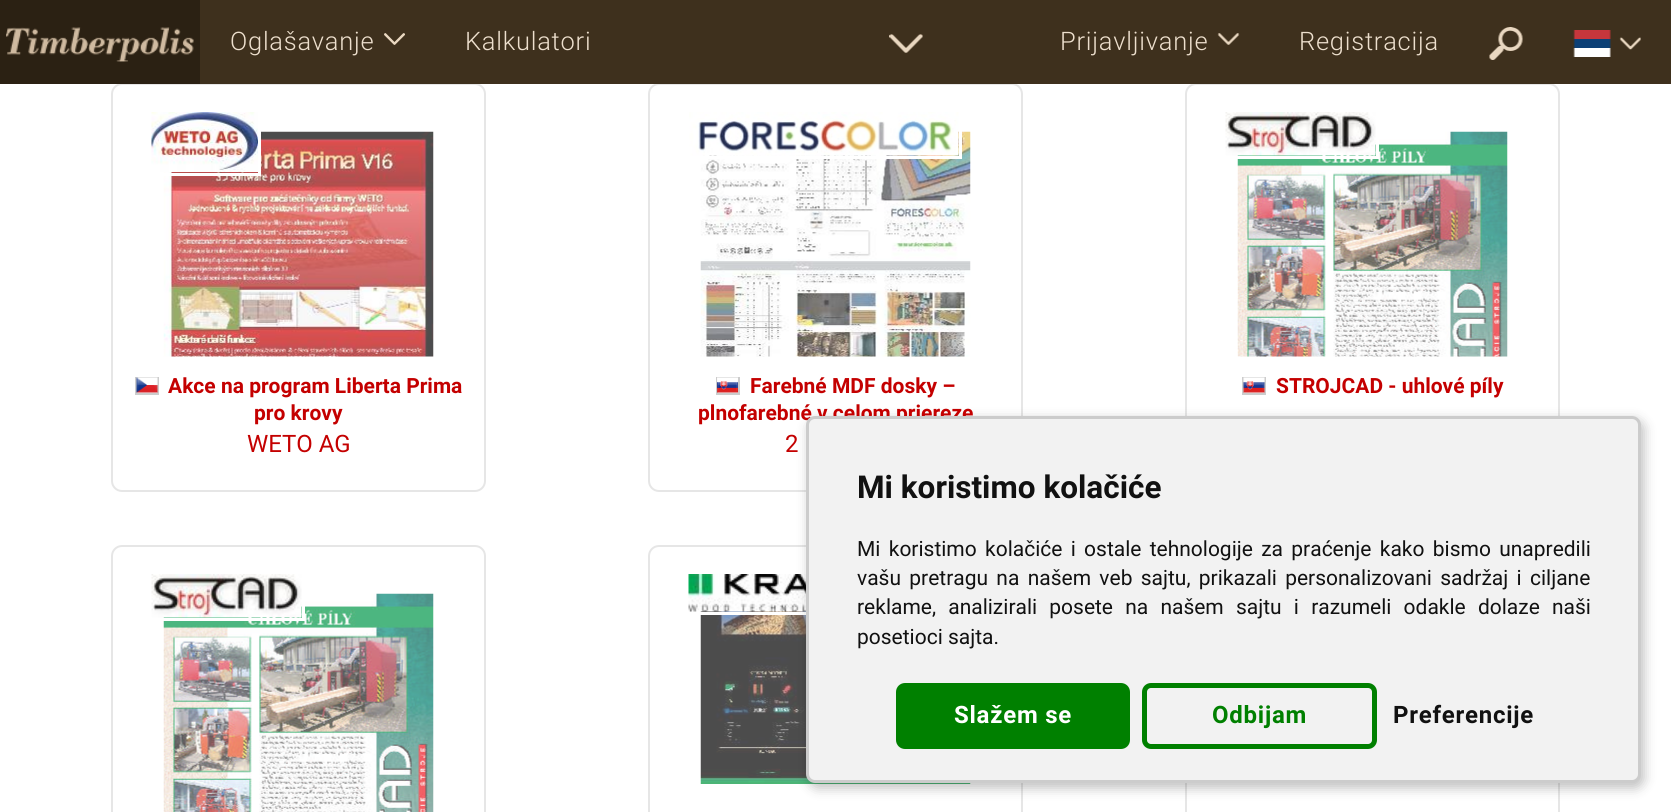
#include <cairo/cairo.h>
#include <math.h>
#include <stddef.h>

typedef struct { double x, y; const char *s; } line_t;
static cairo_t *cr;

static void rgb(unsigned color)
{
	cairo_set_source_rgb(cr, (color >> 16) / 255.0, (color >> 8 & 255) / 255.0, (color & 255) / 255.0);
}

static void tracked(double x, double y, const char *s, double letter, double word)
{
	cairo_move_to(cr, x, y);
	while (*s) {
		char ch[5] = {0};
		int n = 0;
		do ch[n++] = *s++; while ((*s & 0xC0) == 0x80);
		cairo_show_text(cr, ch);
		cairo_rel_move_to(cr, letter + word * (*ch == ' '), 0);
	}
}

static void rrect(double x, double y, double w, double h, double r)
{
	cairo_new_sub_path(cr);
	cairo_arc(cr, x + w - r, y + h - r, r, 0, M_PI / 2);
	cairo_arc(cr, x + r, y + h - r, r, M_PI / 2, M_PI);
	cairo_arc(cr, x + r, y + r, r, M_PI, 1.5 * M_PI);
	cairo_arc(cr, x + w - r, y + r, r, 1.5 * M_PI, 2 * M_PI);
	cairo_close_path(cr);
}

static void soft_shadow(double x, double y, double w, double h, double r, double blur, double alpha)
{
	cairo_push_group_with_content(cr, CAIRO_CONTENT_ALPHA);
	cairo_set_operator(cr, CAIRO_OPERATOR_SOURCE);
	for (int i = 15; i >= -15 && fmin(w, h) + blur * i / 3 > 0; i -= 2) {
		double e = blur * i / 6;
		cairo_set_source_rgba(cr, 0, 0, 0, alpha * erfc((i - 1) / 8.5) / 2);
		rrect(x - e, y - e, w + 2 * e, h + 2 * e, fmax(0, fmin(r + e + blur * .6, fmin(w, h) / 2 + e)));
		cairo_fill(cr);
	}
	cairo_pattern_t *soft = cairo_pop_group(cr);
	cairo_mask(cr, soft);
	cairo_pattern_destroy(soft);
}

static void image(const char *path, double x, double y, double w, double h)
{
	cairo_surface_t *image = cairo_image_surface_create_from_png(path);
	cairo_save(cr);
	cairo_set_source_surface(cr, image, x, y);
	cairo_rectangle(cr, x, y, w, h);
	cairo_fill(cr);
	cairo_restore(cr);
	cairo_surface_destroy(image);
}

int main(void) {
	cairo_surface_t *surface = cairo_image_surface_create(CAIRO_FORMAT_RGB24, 1671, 812);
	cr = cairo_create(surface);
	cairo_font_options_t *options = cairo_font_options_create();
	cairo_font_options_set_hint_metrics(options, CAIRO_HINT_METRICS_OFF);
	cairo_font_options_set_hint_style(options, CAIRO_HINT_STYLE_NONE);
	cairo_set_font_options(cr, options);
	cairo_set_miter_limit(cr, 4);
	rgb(0xffffff);
	cairo_paint(cr);
	rrect(112, 84, 373, 407, 10);
	rgb(0xe6e6e6);
	cairo_stroke(cr);
	rrect(649, 84, 373, 407, 10);
	cairo_stroke(cr);
	rrect(1186, 84, 373, 407, 10);
	cairo_stroke(cr);
	rgb(0x3e301d);
	cairo_rectangle(cr, 200, 0, 1471, 84);
	cairo_fill(cr);
	rgb(0x2b2113);
	cairo_rectangle(cr, 0, 0, 200, 84);
	cairo_fill(cr);
	image("img/1.png", 6, 27, 188, 35);
	image("img/2.png", 384, 33, 21, 12);
	image("img/3.png", 889, 34, 34, 19);
	image("img/4.png", 1217, 33, 23, 12);
	image("img/5.png", 1489, 27, 34, 33);
	image("img/6.png", 1573, 30, 38, 27);
	image("img/7.png", 1619, 37, 22, 13);
	image("img/9.png", 163, 131, 271, 226);
	cairo_rectangle(cr, 150.5, 111.5, 109, 63);
	rgb(0xffffff);
	cairo_set_line_width(cr, 3);
	cairo_stroke(cr);
	image("img/8.png", 151, 112, 107, 60);
	cairo_rectangle(cr, 136, 378, 22, 16);
	rgb(0xcccccc);
	cairo_set_line_width(cr, 2);
	cairo_stroke(cr);
	image("img/10.png", 136, 377, 22, 16);
	image("img/12.png", 700, 131, 271, 226);
	cairo_rectangle(cr, 687.5, 111.5, 273, 46);
	rgb(0xffffff);
	cairo_set_line_width(cr, 3);
	cairo_stroke(cr);
	image("img/11.png", 689, 112, 270, 44);
	cairo_rectangle(cr, 717, 378, 22, 16);
	rgb(0xcccccc);
	cairo_set_line_width(cr, 2);
	cairo_stroke(cr);
	image("img/13.png", 717, 377, 21, 16);
	image("img/15.png", 1237, 131, 271, 226);
	cairo_rectangle(cr, 1224.5, 111.5, 153, 46);
	rgb(0xffffff);
	cairo_set_line_width(cr, 3);
	cairo_stroke(cr);
	image("img/14.png", 1225, 112, 151, 44);
	cairo_rectangle(cr, 1243, 378, 22, 16);
	rgb(0xcccccc);
	cairo_set_line_width(cr, 2);
	cairo_stroke(cr);
	image("img/16.png", 1243, 377, 22, 16);
	rrect(112, 546, 373, 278, 10);
	rgb(0xe6e6e6);
	cairo_stroke(cr);
	image("img/17.png", 163, 593, 271, 219);
	cairo_rectangle(cr, 150.5, 573.5, 153, 46);
	rgb(0xffffff);
	cairo_set_line_width(cr, 3);
	cairo_stroke(cr);
	image("img/14.png", 151, 574, 151, 44);
	rrect(649, 546, 373, 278, 10);
	rgb(0xe6e6e6);
	cairo_set_line_width(cr, 2);
	cairo_stroke(cr);
	image("img/19.png", 700, 611, 271, 173);
	cairo_rectangle(cr, 687.5, 573.5, 153, 40);
	rgb(0xffffff);
	cairo_set_line_width(cr, 3);
	cairo_stroke(cr);
	image("img/18.png", 688, 574, 118, 38);
	cairo_rectangle(cr, 1186, 546, 373, 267);
	rgb(0xe6e6e6);
	cairo_set_line_width(cr, 2);
	cairo_stroke(cr);
	rgb(0x000000);
	soft_shadow(809, 420, 835, 368, 9, 6, 0.25);
	cairo_select_font_face(cr, "Roboto Light", CAIRO_FONT_SLANT_NORMAL, CAIRO_FONT_WEIGHT_NORMAL);
	cairo_set_font_size(cr, 25.5);
	rgb(0xeddfcd);
	{
		static const line_t items[] = {
			{230, 50, "Oglašavanje"},
			{465, 50, "Kalkulatori"},
			{1060, 50, "Prijavljivanje"},
			{1299, 50, "Registracija"},
		};
		for (size_t i = 0; i < sizeof items / sizeof *items; i++) {
			tracked(items[i].x, items[i].y, items[i].s, 0.75, 0);
		}
	}
	cairo_select_font_face(cr, "Roboto", CAIRO_FONT_SLANT_NORMAL, CAIRO_FONT_WEIGHT_BOLD);
	cairo_set_font_size(cr, 21);
	rgb(0xc40000);
	cairo_move_to(cr, 168, 393);
	cairo_show_text(cr, "Akce na program Liberta Prima");
	cairo_move_to(cr, 254, 420);
	cairo_show_text(cr, "pro krovy");
	cairo_select_font_face(cr, "Roboto", CAIRO_FONT_SLANT_NORMAL, CAIRO_FONT_WEIGHT_NORMAL);
	cairo_set_font_size(cr, 24);
	cairo_move_to(cr, 247, 452);
	cairo_show_text(cr, "WETO AG");
	cairo_select_font_face(cr, "Roboto", CAIRO_FONT_SLANT_NORMAL, CAIRO_FONT_WEIGHT_BOLD);
	cairo_set_font_size(cr, 21);
	cairo_move_to(cr, 750, 393);
	cairo_show_text(cr, "Farebné MDF dosky –");
	cairo_move_to(cr, 698, 420);
	cairo_show_text(cr, "plnofarebné v celom priereze");
	cairo_select_font_face(cr, "Roboto", CAIRO_FONT_SLANT_NORMAL, CAIRO_FONT_WEIGHT_NORMAL);
	cairo_set_font_size(cr, 24);
	cairo_move_to(cr, 785, 452);
	cairo_show_text(cr, "2");
	cairo_select_font_face(cr, "Roboto", CAIRO_FONT_SLANT_NORMAL, CAIRO_FONT_WEIGHT_BOLD);
	cairo_set_font_size(cr, 21);
	cairo_move_to(cr, 1276, 393);
	cairo_show_text(cr, "STROJCAD - uhlové píly");
	rgb(0xf2f2f2);
	rrect(807.5, 417.5, 832, 364, 7.5);
	cairo_fill_preserve(cr);
	rgb(0xcccccc);
	cairo_set_line_width(cr, 3);
	cairo_stroke(cr);
	cairo_set_font_size(cr, 31.5);
	rgb(0x111111);
	cairo_move_to(cr, 857, 498);
	cairo_show_text(cr, "Mi koristimo kolačiće");
	cairo_select_font_face(cr, "Roboto", CAIRO_FONT_SLANT_NORMAL, CAIRO_FONT_WEIGHT_NORMAL);
	cairo_set_font_size(cr, 21);
	tracked(857, 556, "Mi koristimo kolačiće i ostale tehnologije za praćenje kako bismo unapredili", 0, 3.1);
	tracked(857, 585, "vašu pretragu na našem veb sajtu, prikazali personalizovani sadržaj i ciljane", 0, 3.1);
	tracked(857, 614, "reklame, analizirali posete na našem sajtu i razumeli odakle dolaze naši", 0, 7);
	cairo_move_to(cr, 857, 644);
	cairo_show_text(cr, "posetioci sajta.");
	rgb(0x008000);
	rrect(898.5, 685.5, 229, 61, 6.5);
	cairo_fill_preserve(cr);
	cairo_set_line_width(cr, 5);
	cairo_stroke(cr);
	cairo_select_font_face(cr, "Roboto", CAIRO_FONT_SLANT_NORMAL, CAIRO_FONT_WEIGHT_BOLD);
	cairo_set_font_size(cr, 24);
	rgb(0xffffff);
	tracked(954, 723, "Slažem se", 0.75, 0);
	rrect(1144.5, 685.5, 230, 61, 6.5);
	rgb(0x008000);
	cairo_stroke(cr);
	tracked(1212, 723, "Odbijam", 0.75, 0);
	rgb(0x111111);
	tracked(1393, 723, "Preferencije", 0.75, 0);
	cairo_surface_write_to_png(surface, "page.png");
	cairo_font_options_destroy(options);
	cairo_destroy(cr);
	cairo_surface_destroy(surface);
	return 0;
}
